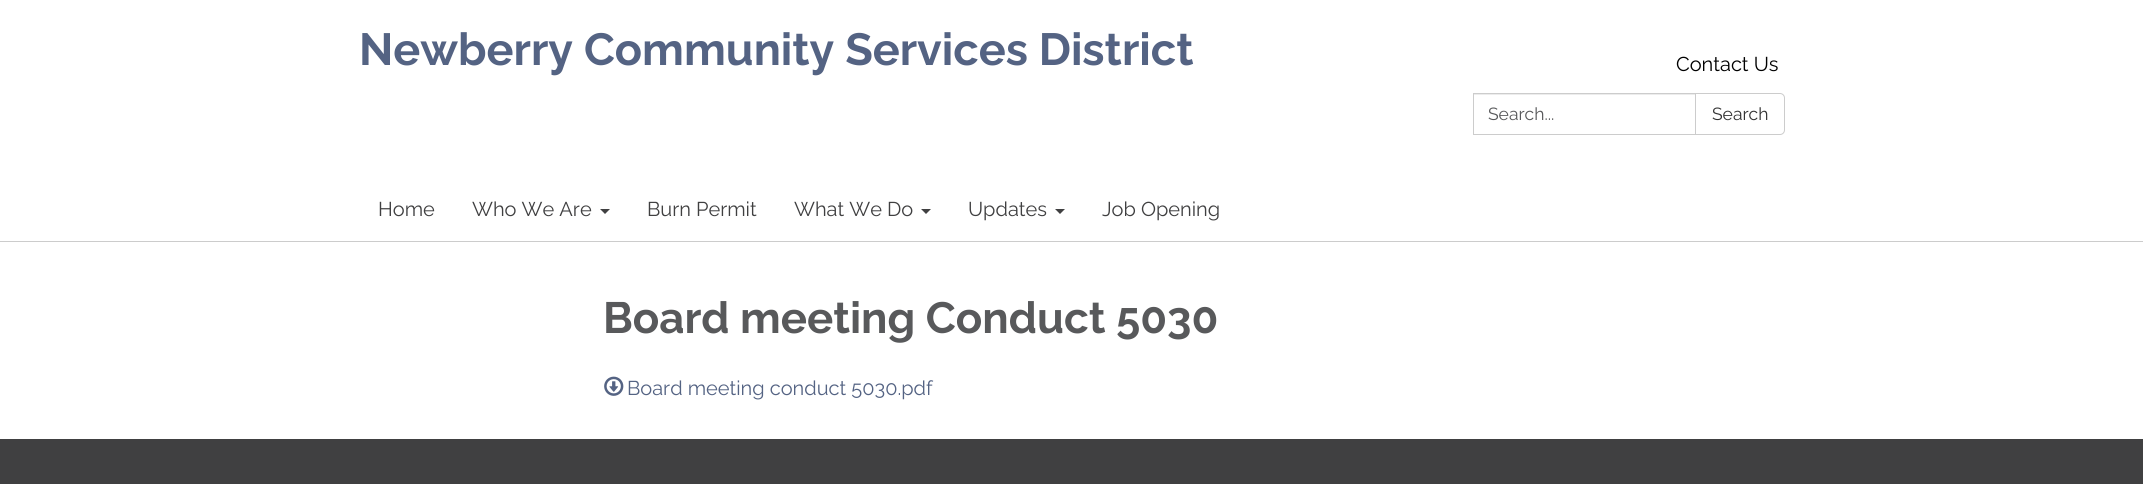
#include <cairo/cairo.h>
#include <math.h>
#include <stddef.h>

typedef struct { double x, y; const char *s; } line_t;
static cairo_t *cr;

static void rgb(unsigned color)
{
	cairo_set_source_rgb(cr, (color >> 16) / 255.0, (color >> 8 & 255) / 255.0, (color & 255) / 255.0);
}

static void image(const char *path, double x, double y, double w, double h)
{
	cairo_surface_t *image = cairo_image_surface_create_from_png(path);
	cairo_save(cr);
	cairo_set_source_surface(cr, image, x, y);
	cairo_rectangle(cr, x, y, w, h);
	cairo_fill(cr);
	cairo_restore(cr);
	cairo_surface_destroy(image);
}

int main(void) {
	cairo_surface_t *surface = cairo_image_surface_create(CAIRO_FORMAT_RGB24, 2143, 484);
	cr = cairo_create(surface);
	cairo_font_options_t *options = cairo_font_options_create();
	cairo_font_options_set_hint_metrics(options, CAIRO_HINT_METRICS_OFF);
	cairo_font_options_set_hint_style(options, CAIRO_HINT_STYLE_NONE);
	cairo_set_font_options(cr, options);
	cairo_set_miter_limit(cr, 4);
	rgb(0x404041);
	cairo_paint(cr);
	rgb(0xffffff);
	cairo_rectangle(cr, 0, 0, 2143, 241);
	cairo_fill(cr);
	rgb(0xececec);
	cairo_rectangle(cr, 1474, 94, 221, 1);
	cairo_fill(cr);
	cairo_rectangle(cr, 1473.5, 93.5, 222, 41);
	rgb(0xcccccc);
	cairo_set_line_width(cr, 1);
	cairo_stroke(cr);
	rgb(0xffffff);
	cairo_new_path(cr);
	cairo_move_to(cr, 1695.5, 93.5);
	cairo_line_to(cr, 1780, 93.5);
	cairo_curve_to(cr, 1782.5, 93.5, 1784.5, 95.5, 1784.5, 98);
	cairo_line_to(cr, 1784.5, 130);
	cairo_curve_to(cr, 1784.5, 132.5, 1782.5, 134.5, 1780, 134.5);
	cairo_line_to(cr, 1695.5, 134.5);
	cairo_close_path(cr);
	cairo_fill_preserve(cr);
	rgb(0xcccccc);
	cairo_stroke(cr);
	rgb(0x404041);
	cairo_new_path(cr);
	cairo_move_to(cr, 600, 209);
	cairo_line_to(cr, 610, 209);
	cairo_line_to(cr, 605, 214);
	cairo_close_path(cr);
	cairo_fill(cr);
	cairo_new_path(cr);
	cairo_move_to(cr, 921, 209);
	cairo_line_to(cr, 931, 209);
	cairo_line_to(cr, 926, 214);
	cairo_close_path(cr);
	cairo_fill(cr);
	cairo_new_path(cr);
	cairo_move_to(cr, 1055, 209);
	cairo_line_to(cr, 1065, 209);
	cairo_line_to(cr, 1060, 214);
	cairo_close_path(cr);
	cairo_fill(cr);
	rgb(0xffffff);
	cairo_rectangle(cr, 0, 242, 2143, 197);
	cairo_fill(cr);
	rgb(0xcccccc);
	cairo_rectangle(cr, 0, 241, 2143, 1);
	cairo_fill(cr);
	image("img/1.png", 604, 376, 20, 20);
	cairo_select_font_face(cr, "Raleway", CAIRO_FONT_SLANT_NORMAL, CAIRO_FONT_WEIGHT_BOLD);
	cairo_set_font_size(cr, 45);
	rgb(0x546383);
	cairo_move_to(cr, 359, 65);
	cairo_show_text(cr, "Newberry Community Services District");
	cairo_select_font_face(cr, "Raleway", CAIRO_FONT_SLANT_NORMAL, CAIRO_FONT_WEIGHT_NORMAL);
	cairo_set_font_size(cr, 20);
	rgb(0x000000);
	cairo_move_to(cr, 1676, 71);
	cairo_show_text(cr, "Contact Us");
	cairo_set_font_size(cr, 17.5);
	rgb(0x58595b);
	cairo_move_to(cr, 1488, 120);
	cairo_show_text(cr, "Search...");
	rgb(0x333333);
	cairo_move_to(cr, 1712, 120);
	cairo_show_text(cr, "Search");
	cairo_set_font_size(cr, 20);
	rgb(0x404041);
	{
		static const line_t items[] = {
			{378, 216, "Home"},
			{472, 216, "Who We Are"},
			{647, 216, "Burn Permit"},
			{794, 216, "What We Do"},
			{968, 216, "Updates"},
			{1102, 216, "Job Opening"},
		};
		for (size_t i = 0; i < sizeof items / sizeof *items; i++) {
			cairo_move_to(cr, items[i].x, items[i].y);
			cairo_show_text(cr, items[i].s);
		}
	}
	cairo_select_font_face(cr, "Raleway", CAIRO_FONT_SLANT_NORMAL, CAIRO_FONT_WEIGHT_BOLD);
	cairo_set_font_size(cr, 43.75);
	rgb(0x58595b);
	cairo_move_to(cr, 603, 333);
	cairo_show_text(cr, "Board meeting Conduct 5030");
	cairo_select_font_face(cr, "Raleway", CAIRO_FONT_SLANT_NORMAL, CAIRO_FONT_WEIGHT_NORMAL);
	cairo_set_font_size(cr, 20);
	rgb(0x546383);
	cairo_move_to(cr, 627, 395);
	cairo_show_text(cr, "Board meeting conduct 5030.pdf");
	cairo_surface_write_to_png(surface, "page.png");
	cairo_font_options_destroy(options);
	cairo_destroy(cr);
	cairo_surface_destroy(surface);
	return 0;
}
